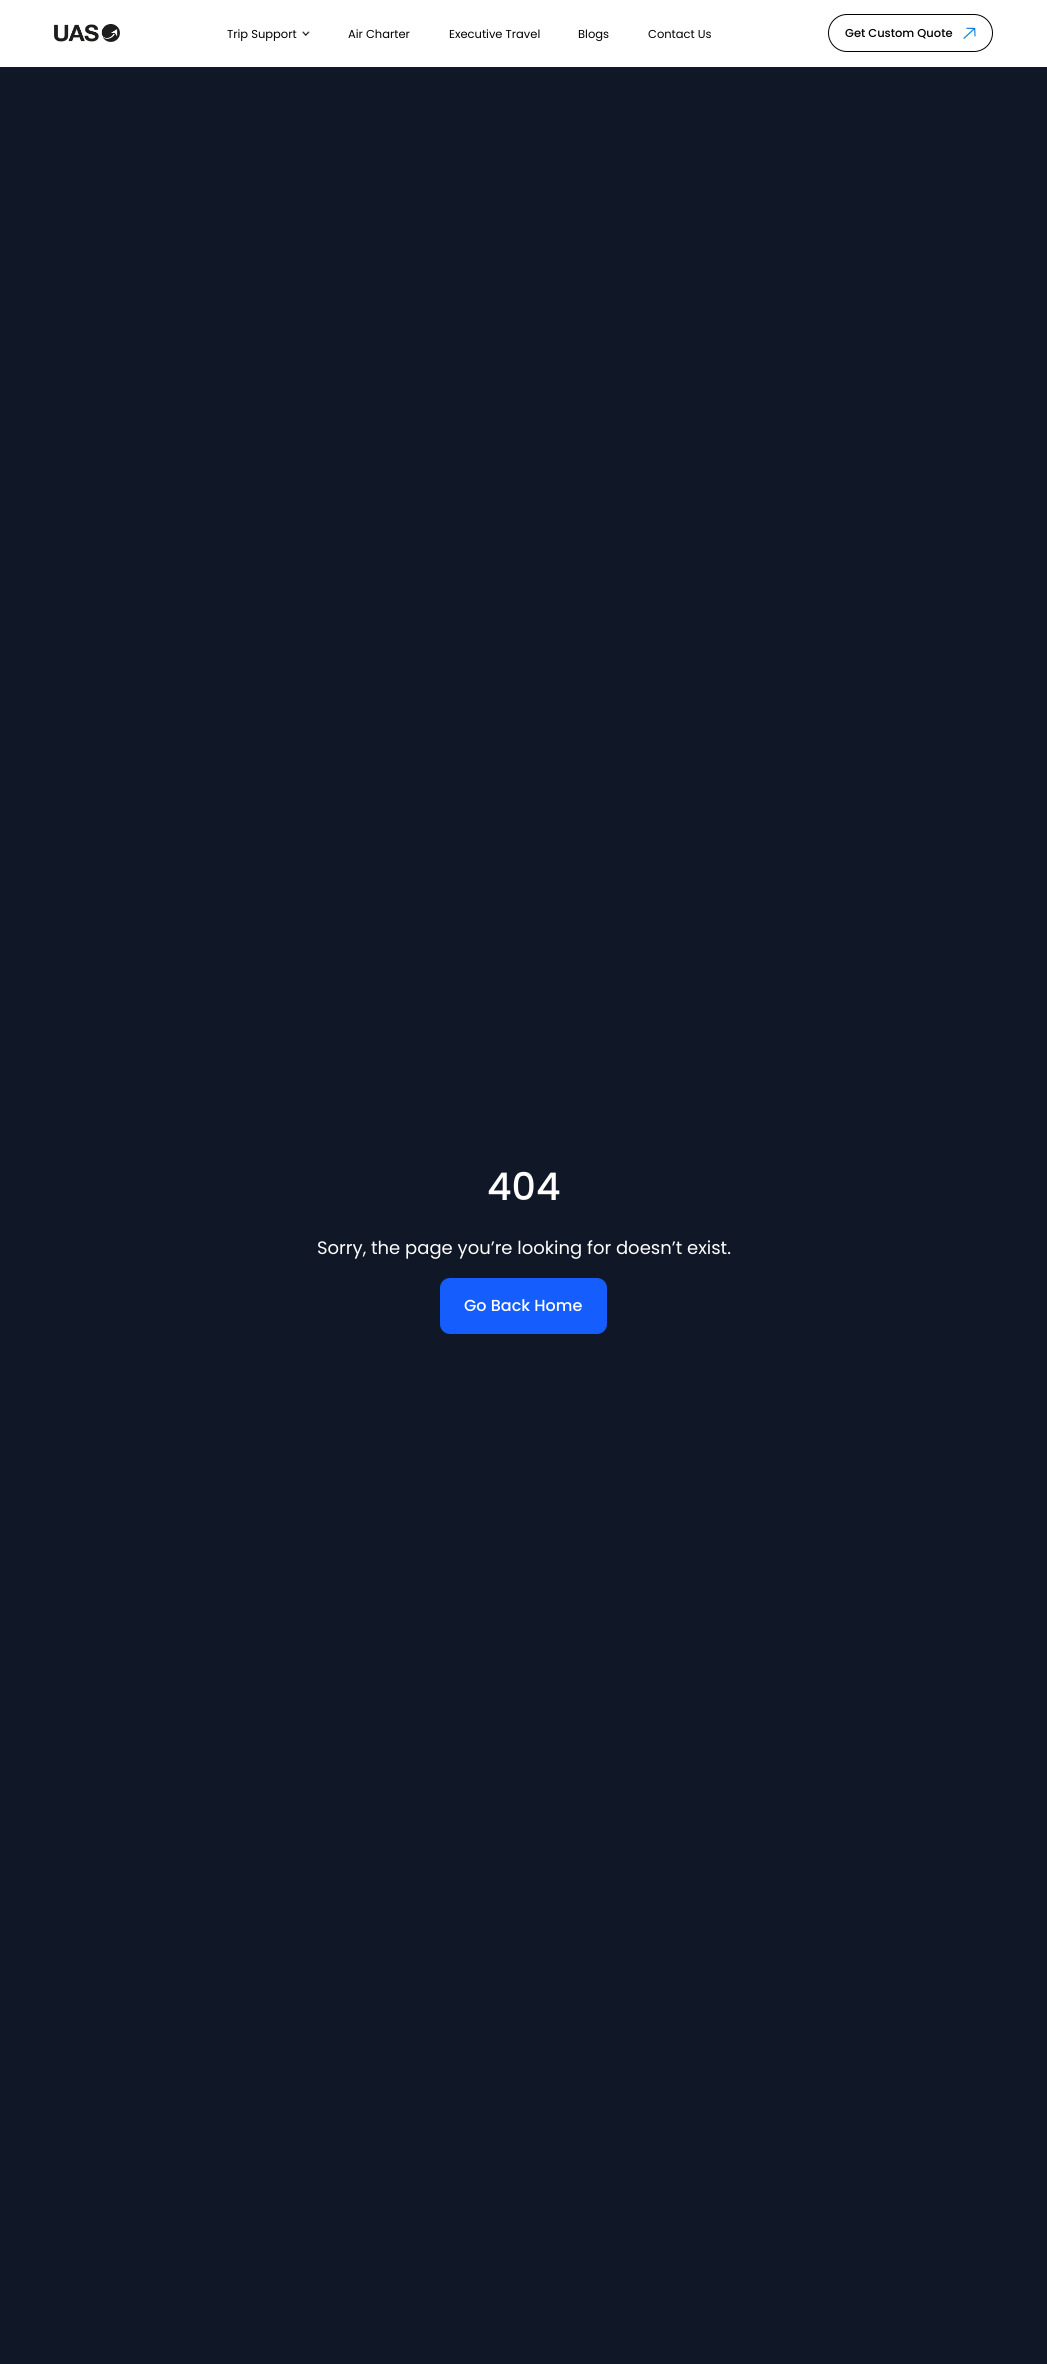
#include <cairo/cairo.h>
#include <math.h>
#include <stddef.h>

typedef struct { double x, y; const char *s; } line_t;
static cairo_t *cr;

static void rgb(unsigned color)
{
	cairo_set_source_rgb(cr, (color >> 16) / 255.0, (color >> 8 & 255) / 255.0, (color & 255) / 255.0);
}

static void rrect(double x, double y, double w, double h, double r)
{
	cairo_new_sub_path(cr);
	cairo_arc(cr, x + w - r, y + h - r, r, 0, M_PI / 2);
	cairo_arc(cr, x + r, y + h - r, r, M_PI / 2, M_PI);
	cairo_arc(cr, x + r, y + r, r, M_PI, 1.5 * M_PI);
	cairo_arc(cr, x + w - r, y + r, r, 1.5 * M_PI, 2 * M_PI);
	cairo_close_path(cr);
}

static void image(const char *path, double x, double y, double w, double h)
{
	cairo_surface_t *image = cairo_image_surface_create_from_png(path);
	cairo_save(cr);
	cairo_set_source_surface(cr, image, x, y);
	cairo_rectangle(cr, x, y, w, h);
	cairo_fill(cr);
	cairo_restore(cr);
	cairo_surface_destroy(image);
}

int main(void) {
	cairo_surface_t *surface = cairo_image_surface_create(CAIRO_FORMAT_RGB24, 1047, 2364);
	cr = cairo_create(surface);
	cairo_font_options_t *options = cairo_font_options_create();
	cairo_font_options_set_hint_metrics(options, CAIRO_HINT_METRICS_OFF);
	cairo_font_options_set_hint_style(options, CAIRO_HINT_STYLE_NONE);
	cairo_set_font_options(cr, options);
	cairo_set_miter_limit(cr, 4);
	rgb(0xffffff);
	cairo_paint(cr);
	image("img/1.png", 54, 24, 66, 18);
	image("img/2.png", 302, 31, 8, 5);
	rrect(828.5, 14.5, 164, 37, 18.5);
	rgb(0x000000);
	cairo_set_line_width(cr, 1);
	cairo_stroke(cr);
	image("img/3.png", 963, 27, 13, 12);
	rgb(0x101828);
	cairo_rectangle(cr, 0, 67, 1047, 2297);
	cairo_fill(cr);
	rgb(0x155dfc);
	rrect(440, 1278, 167, 56, 10);
	cairo_fill(cr);
	cairo_select_font_face(cr, "Poppins", CAIRO_FONT_SLANT_NORMAL, CAIRO_FONT_WEIGHT_NORMAL);
	cairo_set_font_size(cr, 11.5);
	rgb(0x000000);
	{
		static const line_t items[] = {
			{227, 38, "Trip Support"},
			{348, 38, "Air Charter"},
			{449, 38, "Executive Travel"},
			{578, 38, "Blogs"},
			{648, 38, "Contact Us"},
		};
		for (size_t i = 0; i < sizeof items / sizeof *items; i++) {
			cairo_move_to(cr, items[i].x, items[i].y);
			cairo_show_text(cr, items[i].s);
		}
	}
	cairo_select_font_face(cr, "Poppins Medium", CAIRO_FONT_SLANT_NORMAL, CAIRO_FONT_WEIGHT_NORMAL);
	cairo_move_to(cr, 845, 37);
	cairo_show_text(cr, "Get Custom Quote");
	cairo_set_font_size(cr, 38);
	rgb(0xffffff);
	cairo_move_to(cr, 487, 1200);
	cairo_show_text(cr, "404");
	cairo_select_font_face(cr, "Poppins", CAIRO_FONT_SLANT_NORMAL, CAIRO_FONT_WEIGHT_NORMAL);
	cairo_set_font_size(cr, 18);
	cairo_move_to(cr, 317, 1254);
	cairo_show_text(cr, "Sorry, the page you’re looking for doesn’t exist.");
	cairo_select_font_face(cr, "Poppins Medium", CAIRO_FONT_SLANT_NORMAL, CAIRO_FONT_WEIGHT_NORMAL);
	cairo_set_font_size(cr, 16);
	cairo_move_to(cr, 464, 1311);
	cairo_show_text(cr, "Go Back Home");
	cairo_surface_write_to_png(surface, "page.png");
	cairo_font_options_destroy(options);
	cairo_destroy(cr);
	cairo_surface_destroy(surface);
	return 0;
}
